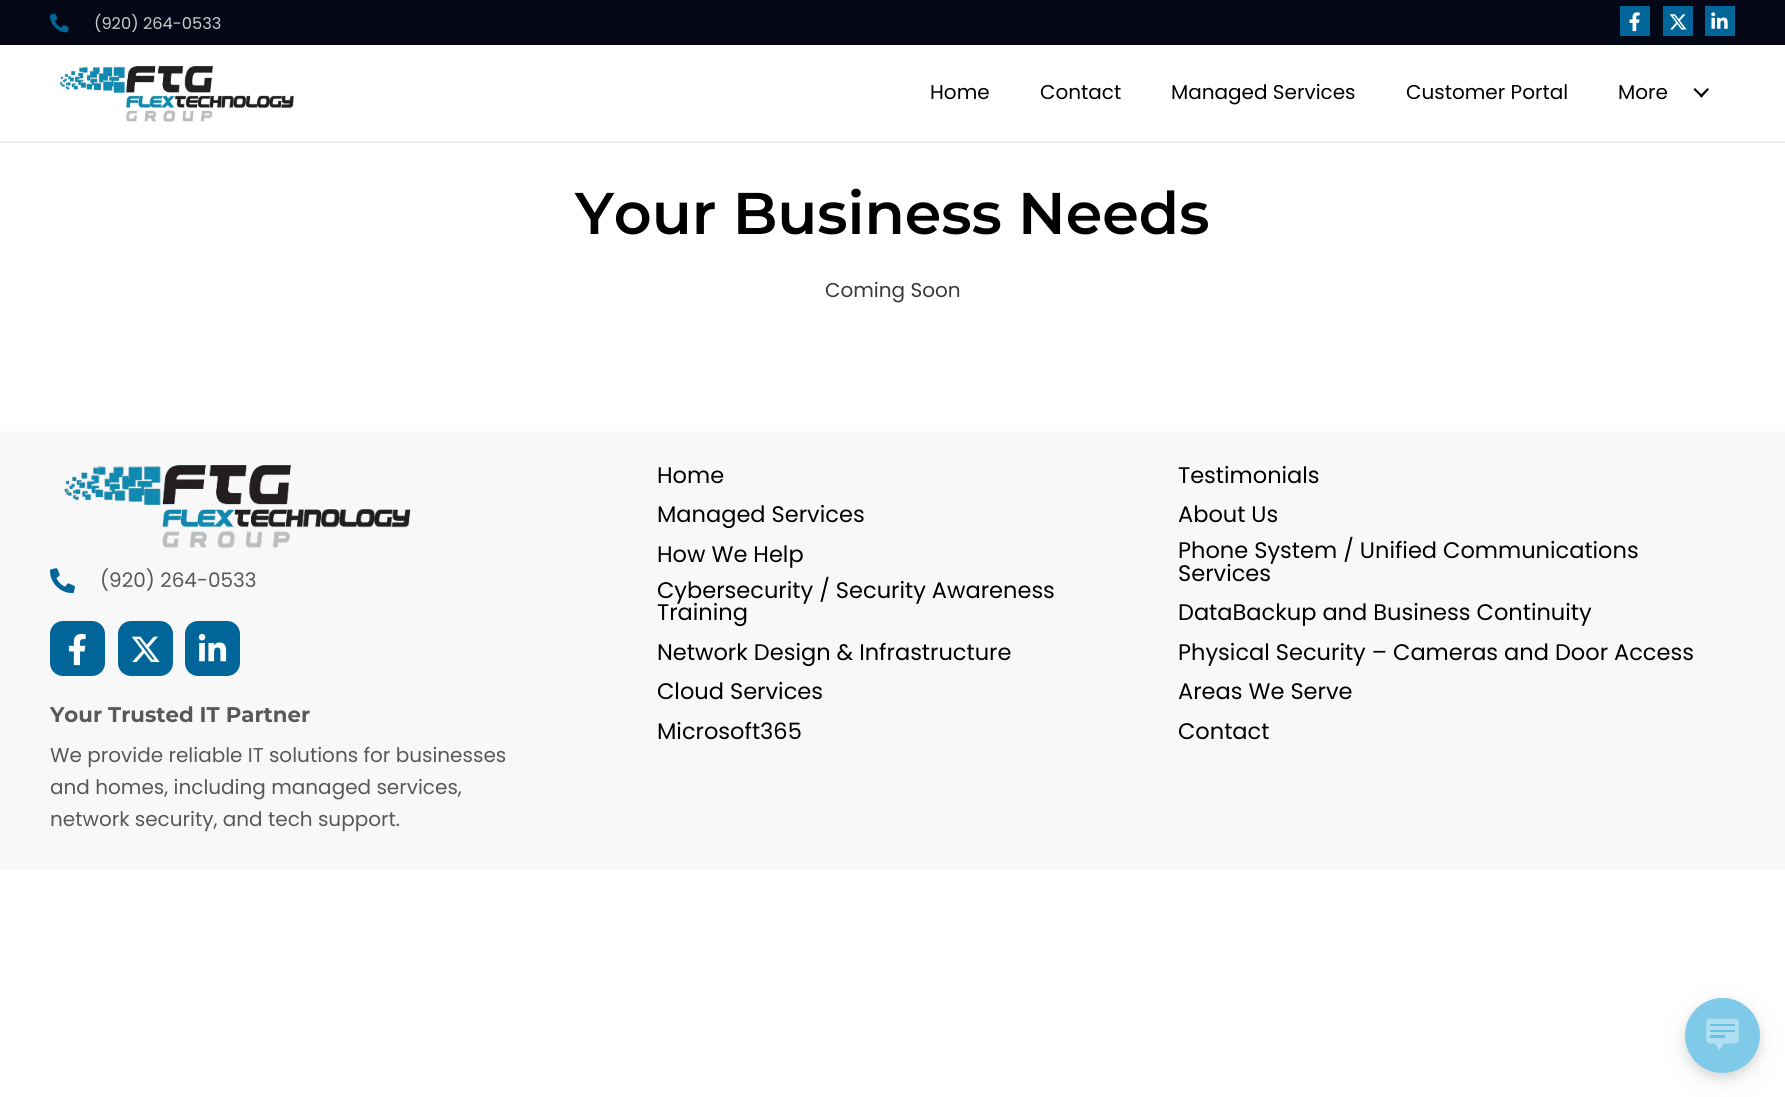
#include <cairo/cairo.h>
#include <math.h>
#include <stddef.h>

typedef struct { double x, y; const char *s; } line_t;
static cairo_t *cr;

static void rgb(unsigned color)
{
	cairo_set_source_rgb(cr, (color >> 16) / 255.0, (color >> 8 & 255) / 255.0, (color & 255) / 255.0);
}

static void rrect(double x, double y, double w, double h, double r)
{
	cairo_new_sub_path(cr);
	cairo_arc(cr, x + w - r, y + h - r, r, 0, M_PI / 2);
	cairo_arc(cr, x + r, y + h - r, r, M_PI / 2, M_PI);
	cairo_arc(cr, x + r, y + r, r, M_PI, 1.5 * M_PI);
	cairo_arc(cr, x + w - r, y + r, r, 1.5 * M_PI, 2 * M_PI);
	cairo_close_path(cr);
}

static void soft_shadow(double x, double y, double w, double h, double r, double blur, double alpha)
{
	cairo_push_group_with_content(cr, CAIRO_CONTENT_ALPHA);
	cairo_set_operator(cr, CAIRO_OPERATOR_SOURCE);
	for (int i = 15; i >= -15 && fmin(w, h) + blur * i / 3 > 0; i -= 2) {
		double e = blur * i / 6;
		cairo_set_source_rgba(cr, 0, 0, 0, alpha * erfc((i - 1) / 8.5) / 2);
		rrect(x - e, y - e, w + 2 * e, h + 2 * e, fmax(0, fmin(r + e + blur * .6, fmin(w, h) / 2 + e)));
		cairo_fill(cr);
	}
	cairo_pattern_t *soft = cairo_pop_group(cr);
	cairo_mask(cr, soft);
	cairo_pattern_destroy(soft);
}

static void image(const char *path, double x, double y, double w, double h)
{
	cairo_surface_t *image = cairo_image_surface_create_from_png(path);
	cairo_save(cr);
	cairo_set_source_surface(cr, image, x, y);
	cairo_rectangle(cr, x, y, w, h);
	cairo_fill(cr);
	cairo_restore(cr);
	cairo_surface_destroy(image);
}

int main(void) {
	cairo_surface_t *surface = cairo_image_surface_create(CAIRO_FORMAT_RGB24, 1785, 1097);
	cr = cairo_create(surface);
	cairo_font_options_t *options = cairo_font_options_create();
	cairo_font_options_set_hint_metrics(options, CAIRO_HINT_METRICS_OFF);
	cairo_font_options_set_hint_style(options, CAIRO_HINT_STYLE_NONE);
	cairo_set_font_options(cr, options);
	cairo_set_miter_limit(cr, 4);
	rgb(0xffffff);
	cairo_paint(cr);
	rgb(0x040715);
	cairo_rectangle(cr, 0, 0, 1785, 45);
	cairo_fill(cr);
	image("img/1.png", 50, 13, 19, 20);
	rgb(0x006699);
	cairo_rectangle(cr, 1620, 6, 30, 30);
	cairo_fill(cr);
	image("img/2.png", 1629, 12, 11, 20);
	cairo_rectangle(cr, 1663, 6, 30, 30);
	cairo_fill(cr);
	image("img/3.png", 1669, 14, 18, 16);
	cairo_rectangle(cr, 1705, 6, 30, 30);
	cairo_fill(cr);
	image("img/4.png", 1711, 12, 17, 17);
	rgb(0xededed);
	cairo_rectangle(cr, 0, 141, 1785, 2);
	cairo_fill(cr);
	image("img/5.png", 59, 65, 235, 57);
	rgb(0x000000);
	cairo_new_path(cr);
	cairo_move_to(cr, 1707.5, 88);
	cairo_line_to(cr, 1709, 89.5);
	cairo_line_to(cr, 1701.5, 97.5);
	cairo_line_to(cr, 1699.5, 96);
	cairo_close_path(cr);
	cairo_fill(cr);
	cairo_new_path(cr);
	cairo_move_to(cr, 1695, 88);
	cairo_line_to(cr, 1703, 96);
	cairo_line_to(cr, 1701.5, 97.5);
	cairo_line_to(cr, 1693.5, 89.5);
	cairo_close_path(cr);
	cairo_fill(cr);
	rgb(0xf8f8f8);
	cairo_rectangle(cr, 0, 432, 1785, 438);
	cairo_fill(cr);
	rgb(0xfafafa);
	cairo_rectangle(cr, 0, 431, 1785, 1);
	cairo_fill(cr);
	image("img/6.png", 64, 465, 347, 83);
	image("img/7.png", 50, 568, 25, 26);
	rgb(0x006699);
	rrect(50, 621, 55, 55, 13);
	cairo_fill(cr);
	image("img/8.png", 68, 633, 18, 33);
	rrect(118, 621, 55, 55, 13);
	cairo_fill(cr);
	image("img/9.png", 131, 636, 29, 27);
	rrect(185, 621, 55, 55, 13);
	cairo_fill(cr);
	image("img/10.png", 198, 633, 29, 29);
	rgb(0xb3b3b3);
	soft_shadow(1685, 1005, 75, 75, 37.5, 12.5, 0.19);
	soft_shadow(1685, 1003, 75, 75, 37.5, 5, 0.2);
	rgb(0xb4e0f2);
	cairo_arc(cr, 1722.5, 1035.5, 37.5, 0, 2 * M_PI);
	cairo_fill(cr);
	image("img/11.png", 1706, 1018, 33, 33);
	cairo_save(cr);
	cairo_set_fill_rule(cr, CAIRO_FILL_RULE_EVEN_ODD);
	cairo_new_path(cr);
	cairo_move_to(cr, 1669, 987);
	cairo_line_to(cr, 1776, 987);
	cairo_line_to(cr, 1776, 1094);
	cairo_line_to(cr, 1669, 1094);
	cairo_close_path(cr);
	cairo_move_to(cr, 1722.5, 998);
	cairo_curve_to(cr, 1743, 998, 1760, 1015, 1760, 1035.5);
	cairo_curve_to(cr, 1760, 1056, 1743, 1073, 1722.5, 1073);
	cairo_curve_to(cr, 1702, 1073, 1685, 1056, 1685, 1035.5);
	cairo_curve_to(cr, 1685, 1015, 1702, 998, 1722.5, 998);
	cairo_close_path(cr);
	cairo_clip(cr);
	rgb(0x000000);
	soft_shadow(1685, 1003, 75, 75, 37.5, 5, 0.06);
	cairo_restore(cr);
	cairo_set_source_rgba(cr, 0.02, 0.588, 0.831, 0.3);
	cairo_arc(cr, 1722.5, 1035.5, 37.5, 0, 2 * M_PI);
	cairo_fill(cr);
	image("img/12.png", 1706, 1018, 33, 33);
	cairo_select_font_face(cr, "Poppins", CAIRO_FONT_SLANT_NORMAL, CAIRO_FONT_WEIGHT_NORMAL);
	cairo_set_font_size(cr, 16.25);
	rgb(0xcacbce);
	cairo_move_to(cr, 94, 29);
	cairo_show_text(cr, "(920) 264-0533");
	cairo_set_font_size(cr, 20);
	rgb(0x000000);
	{
		static const line_t items[] = {
			{930, 99, "Home"},
			{1040, 99, "Contact"},
			{1171, 99, "Managed Services"},
			{1406, 99, "Customer Portal"},
			{1618, 99, "More"},
		};
		for (size_t i = 0; i < sizeof items / sizeof *items; i++) {
			cairo_move_to(cr, items[i].x, items[i].y);
			cairo_show_text(cr, items[i].s);
		}
	}
	cairo_select_font_face(cr, "Montserrat SemiBold", CAIRO_FONT_SLANT_NORMAL, CAIRO_FONT_WEIGHT_NORMAL);
	cairo_set_font_size(cr, 58.75);
	cairo_move_to(cr, 575, 234);
	cairo_show_text(cr, "Your Business Needs");
	cairo_select_font_face(cr, "Poppins", CAIRO_FONT_SLANT_NORMAL, CAIRO_FONT_WEIGHT_NORMAL);
	cairo_set_font_size(cr, 20);
	rgb(0x393939);
	cairo_move_to(cr, 825, 297);
	cairo_show_text(cr, "Coming Soon");
	rgb(0x585858);
	cairo_move_to(cr, 100, 587);
	cairo_show_text(cr, "(920) 264-0533");
	cairo_select_font_face(cr, "Montserrat", CAIRO_FONT_SLANT_NORMAL, CAIRO_FONT_WEIGHT_BOLD);
	cairo_set_font_size(cr, 21.25);
	cairo_move_to(cr, 50, 722);
	cairo_show_text(cr, "Your Trusted IT Partner");
	cairo_select_font_face(cr, "Poppins", CAIRO_FONT_SLANT_NORMAL, CAIRO_FONT_WEIGHT_NORMAL);
	cairo_set_font_size(cr, 20);
	{
		static const line_t items[] = {
			{50, 762, "We provide reliable IT solutions for businesses"},
			{50, 794, "and homes, including managed services,"},
			{50, 826, "network security, and tech support."},
		};
		for (size_t i = 0; i < sizeof items / sizeof *items; i++) {
			cairo_move_to(cr, items[i].x, items[i].y);
			cairo_show_text(cr, items[i].s);
		}
	}
	cairo_set_font_size(cr, 22.5);
	rgb(0x000000);
	{
		static const line_t items[] = {
			{657, 483, "Home"},
			{657, 522, "Managed Services"},
			{657, 562, "How We Help"},
			{657, 598, "Cybersecurity / Security Awareness"},
			{657, 620, "Training"},
			{657, 660, "Network Design & Infrastructure"},
			{657, 699, "Cloud Services"},
			{657, 739, "Microsoft365"},
			{1178, 483, "Testimonials"},
			{1178, 522, "About Us"},
			{1178, 558, "Phone System / Unified Communications"},
			{1178, 581, "Services"},
			{1178, 620, "DataBackup and Business Continuity"},
			{1178, 660, "Physical Security – Cameras and Door Access"},
			{1178, 699, "Areas We Serve"},
			{1178, 739, "Contact"},
		};
		for (size_t i = 0; i < sizeof items / sizeof *items; i++) {
			cairo_move_to(cr, items[i].x, items[i].y);
			cairo_show_text(cr, items[i].s);
		}
	}
	cairo_surface_write_to_png(surface, "page.png");
	cairo_font_options_destroy(options);
	cairo_destroy(cr);
	cairo_surface_destroy(surface);
	return 0;
}
